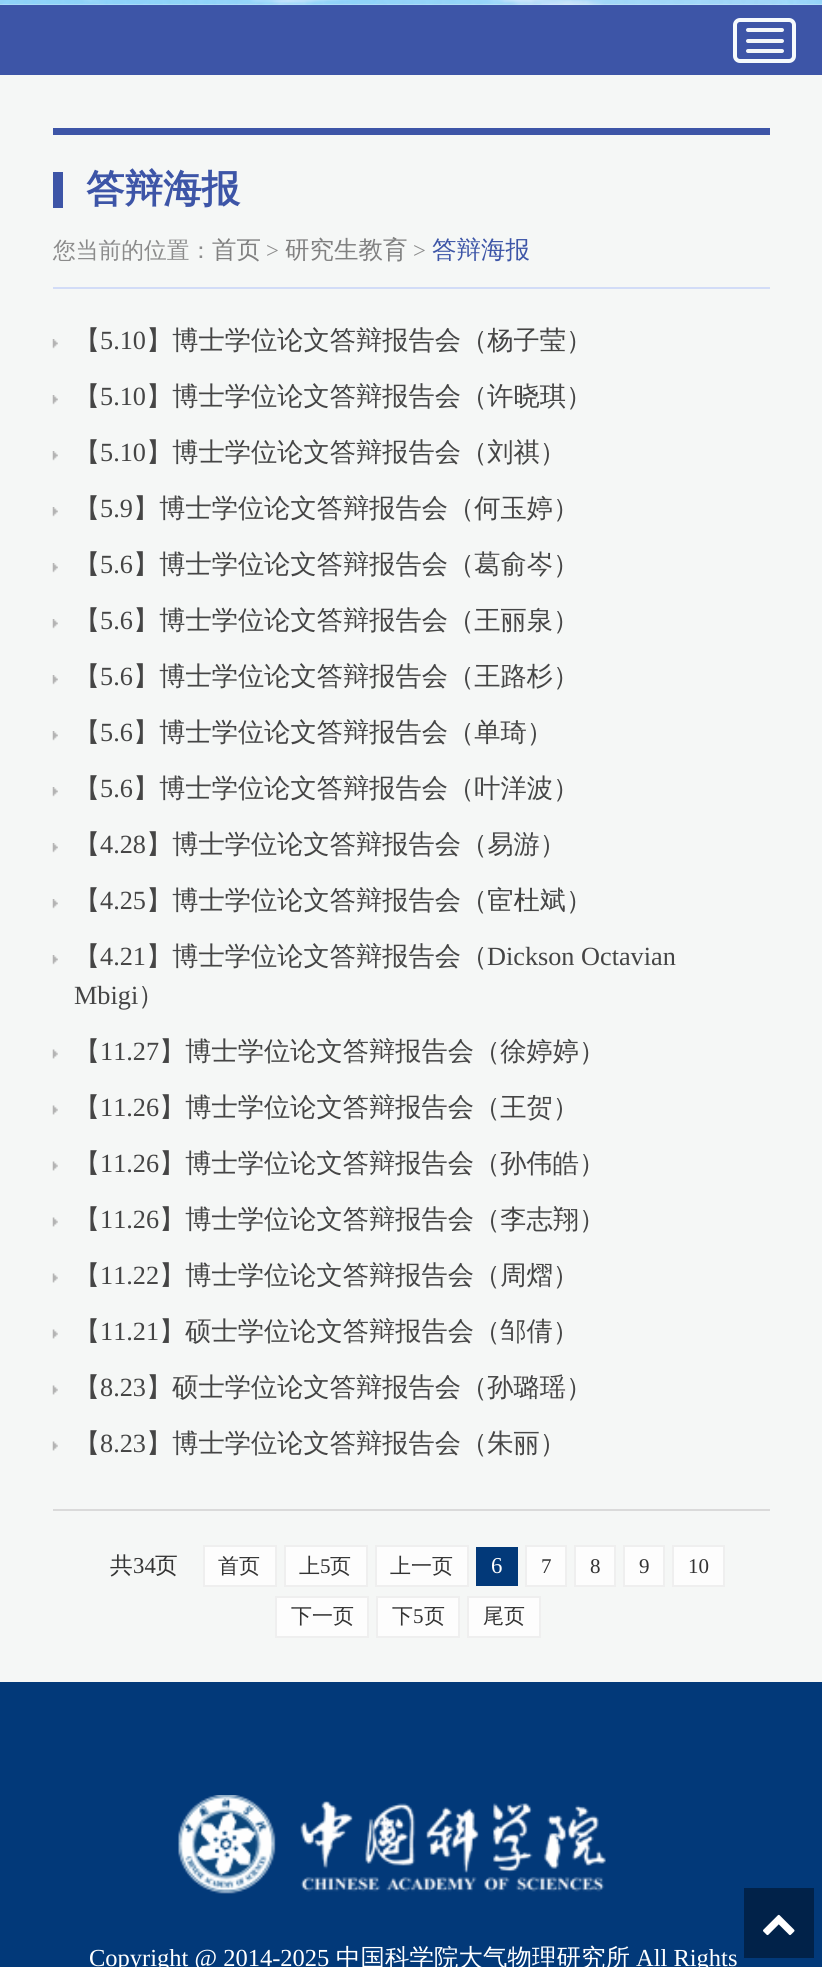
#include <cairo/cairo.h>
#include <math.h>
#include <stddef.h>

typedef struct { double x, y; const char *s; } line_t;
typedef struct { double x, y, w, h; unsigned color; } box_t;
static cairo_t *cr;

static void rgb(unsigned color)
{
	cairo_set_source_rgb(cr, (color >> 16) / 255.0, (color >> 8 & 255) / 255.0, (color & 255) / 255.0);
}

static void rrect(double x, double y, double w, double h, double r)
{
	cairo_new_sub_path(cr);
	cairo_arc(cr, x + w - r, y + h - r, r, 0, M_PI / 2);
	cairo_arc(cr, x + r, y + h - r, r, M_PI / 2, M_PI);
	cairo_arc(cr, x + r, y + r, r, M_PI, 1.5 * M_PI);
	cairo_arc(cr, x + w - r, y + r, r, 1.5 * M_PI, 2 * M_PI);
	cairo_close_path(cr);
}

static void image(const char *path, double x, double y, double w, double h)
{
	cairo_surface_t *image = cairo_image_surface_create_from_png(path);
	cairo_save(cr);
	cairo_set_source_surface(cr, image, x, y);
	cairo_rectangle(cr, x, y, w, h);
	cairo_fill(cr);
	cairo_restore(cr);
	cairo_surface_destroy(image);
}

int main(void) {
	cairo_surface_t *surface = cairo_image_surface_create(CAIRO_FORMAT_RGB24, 822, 1967);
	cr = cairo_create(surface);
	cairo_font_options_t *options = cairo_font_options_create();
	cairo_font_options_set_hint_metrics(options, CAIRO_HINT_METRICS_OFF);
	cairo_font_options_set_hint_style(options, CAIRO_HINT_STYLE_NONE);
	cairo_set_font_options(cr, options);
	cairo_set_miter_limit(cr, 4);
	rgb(0xf5f7f6);
	cairo_paint(cr);
	image("img/1.png", 0, 0, 822, 5);
	rgb(0x3d55a7);
	cairo_rectangle(cr, 0, 5, 822, 70);
	cairo_fill(cr);
	rrect(735, 20, 59, 41, 5);
	rgb(0xf6fafc);
	cairo_set_line_width(cr, 4);
	cairo_stroke(cr);
	rgb(0xf3f6f9);
	rrect(746, 28, 38, 4, 2);
	cairo_fill(cr);
	rrect(746, 39, 38, 4, 2);
	cairo_fill(cr);
	rrect(746, 49, 38, 4, 2);
	cairo_fill(cr);
	{
		static const box_t items[] = {
			{53, 128, 717, 7, 0x3d55a7},
			{53, 172, 10, 36, 0x3d55a7},
			{53, 287, 717, 2, 0xd2dcf7},
		};
		for (size_t i = 0; i < sizeof items / sizeof *items; i++) {
			rgb(items[i].color);
			cairo_rectangle(cr, items[i].x, items[i].y, items[i].w, items[i].h);
			cairo_fill(cr);
		}
	}
	image("img/2.png", 52, 339, 6, 10);
	image("img/2.png", 52, 395, 6, 10);
	image("img/2.png", 52, 451, 6, 10);
	image("img/2.png", 52, 507, 6, 10);
	image("img/2.png", 52, 563, 6, 10);
	image("img/2.png", 52, 619, 6, 10);
	image("img/2.png", 52, 675, 6, 10);
	image("img/2.png", 52, 731, 6, 10);
	image("img/2.png", 52, 787, 6, 10);
	image("img/2.png", 52, 843, 6, 10);
	image("img/2.png", 52, 899, 6, 10);
	image("img/2.png", 52, 955, 6, 10);
	image("img/3.png", 52, 1049, 6, 10);
	image("img/3.png", 52, 1105, 6, 10);
	image("img/3.png", 52, 1161, 6, 10);
	image("img/3.png", 52, 1217, 6, 10);
	image("img/3.png", 52, 1273, 6, 10);
	image("img/3.png", 52, 1329, 6, 10);
	image("img/3.png", 52, 1385, 6, 10);
	image("img/4.png", 52, 1441, 6, 10);
	rgb(0xdadada);
	cairo_rectangle(cr, 53, 1509, 717, 2);
	cairo_fill(cr);
	rgb(0xfdfdfd);
	cairo_rectangle(cr, 204, 1546, 72, 40);
	cairo_fill_preserve(cr);
	rgb(0xefefef);
	cairo_set_line_width(cr, 2);
	cairo_stroke(cr);
	rgb(0xfdfdfd);
	cairo_rectangle(cr, 285, 1546, 82, 40);
	cairo_fill_preserve(cr);
	rgb(0xefefef);
	cairo_stroke(cr);
	rgb(0xfdfdfd);
	cairo_rectangle(cr, 376, 1546, 92, 40);
	cairo_fill_preserve(cr);
	rgb(0xefefef);
	cairo_stroke(cr);
	rgb(0x023979);
	cairo_rectangle(cr, 476, 1547, 42, 39);
	cairo_fill(cr);
	rgb(0xfdfdfd);
	cairo_rectangle(cr, 526, 1546, 40, 40);
	cairo_fill_preserve(cr);
	rgb(0xefefef);
	cairo_stroke(cr);
	rgb(0xfdfdfd);
	cairo_rectangle(cr, 575, 1546, 40, 40);
	cairo_fill_preserve(cr);
	rgb(0xefefef);
	cairo_stroke(cr);
	rgb(0xfdfdfd);
	cairo_rectangle(cr, 624, 1546, 40, 40);
	cairo_fill_preserve(cr);
	rgb(0xefefef);
	cairo_stroke(cr);
	rgb(0xfdfdfd);
	cairo_rectangle(cr, 673, 1546, 51, 40);
	cairo_fill_preserve(cr);
	rgb(0xefefef);
	cairo_stroke(cr);
	rgb(0xfdfdfd);
	cairo_rectangle(cr, 276, 1597, 92, 40);
	cairo_fill_preserve(cr);
	rgb(0xefefef);
	cairo_stroke(cr);
	rgb(0xfdfdfd);
	cairo_rectangle(cr, 377, 1597, 82, 40);
	cairo_fill_preserve(cr);
	rgb(0xefefef);
	cairo_stroke(cr);
	rgb(0xfdfdfd);
	cairo_rectangle(cr, 468, 1597, 72, 40);
	cairo_fill_preserve(cr);
	rgb(0xefefef);
	cairo_stroke(cr);
	rgb(0x023979);
	cairo_rectangle(cr, 0, 1682, 822, 285);
	cairo_fill(cr);
	image("img/5.png", 178, 1795, 428, 99);
	rgb(0x012249);
	cairo_rectangle(cr, 744, 1888, 70, 70);
	cairo_fill(cr);
	image("img/6.png", 763, 1914, 32, 22);
	cairo_select_font_face(cr, "WenQuanYi Zen Hei", CAIRO_FONT_SLANT_NORMAL, CAIRO_FONT_WEIGHT_BOLD);
	cairo_set_font_size(cr, 38.5);
	rgb(0x3d55a7);
	cairo_move_to(cr, 86, 202);
	cairo_show_text(cr, "答辩海报");
	cairo_select_font_face(cr, "WenQuanYi Zen Hei Medium", CAIRO_FONT_SLANT_NORMAL, CAIRO_FONT_WEIGHT_NORMAL);
	cairo_set_font_size(cr, 22.75);
	rgb(0x8b8b8b);
	cairo_move_to(cr, 53, 258);
	cairo_show_text(cr, "您当前的位置：");
	cairo_set_font_size(cr, 24.5);
	rgb(0x808080);
	cairo_move_to(cr, 212, 258);
	cairo_show_text(cr, "首页");
	cairo_select_font_face(cr, "Liberation Serif", CAIRO_FONT_SLANT_NORMAL, CAIRO_FONT_WEIGHT_NORMAL);
	cairo_set_font_size(cr, 22.75);
	rgb(0x8b8b8b);
	cairo_move_to(cr, 266, 258);
	cairo_show_text(cr, ">");
	cairo_select_font_face(cr, "WenQuanYi Zen Hei Medium", CAIRO_FONT_SLANT_NORMAL, CAIRO_FONT_WEIGHT_NORMAL);
	cairo_set_font_size(cr, 24.5);
	rgb(0x808080);
	cairo_move_to(cr, 285, 258);
	cairo_show_text(cr, "研究生教育");
	cairo_select_font_face(cr, "Liberation Serif", CAIRO_FONT_SLANT_NORMAL, CAIRO_FONT_WEIGHT_NORMAL);
	cairo_set_font_size(cr, 22.75);
	rgb(0x8b8b8b);
	cairo_move_to(cr, 413, 258);
	cairo_show_text(cr, ">");
	cairo_select_font_face(cr, "WenQuanYi Zen Hei Medium", CAIRO_FONT_SLANT_NORMAL, CAIRO_FONT_WEIGHT_NORMAL);
	cairo_set_font_size(cr, 24.5);
	rgb(0x3d55a7);
	cairo_move_to(cr, 432, 258);
	cairo_show_text(cr, "答辩海报");
	cairo_set_font_size(cr, 26.25);
	rgb(0x454545);
	cairo_move_to(cr, 74, 349);
	cairo_show_text(cr, "【");
	cairo_select_font_face(cr, "Liberation Serif", CAIRO_FONT_SLANT_NORMAL, CAIRO_FONT_WEIGHT_NORMAL);
	cairo_move_to(cr, 100, 349);
	cairo_show_text(cr, "5.10");
	cairo_select_font_face(cr, "WenQuanYi Zen Hei Medium", CAIRO_FONT_SLANT_NORMAL, CAIRO_FONT_WEIGHT_NORMAL);
	cairo_move_to(cr, 146, 349);
	cairo_show_text(cr, "】博士学位论文答辩报告会（杨子莹）");
	cairo_move_to(cr, 74, 405);
	cairo_show_text(cr, "【");
	cairo_select_font_face(cr, "Liberation Serif", CAIRO_FONT_SLANT_NORMAL, CAIRO_FONT_WEIGHT_NORMAL);
	cairo_move_to(cr, 100, 405);
	cairo_show_text(cr, "5.10");
	cairo_select_font_face(cr, "WenQuanYi Zen Hei Medium", CAIRO_FONT_SLANT_NORMAL, CAIRO_FONT_WEIGHT_NORMAL);
	cairo_move_to(cr, 146, 405);
	cairo_show_text(cr, "】博士学位论文答辩报告会（许晓琪）");
	cairo_move_to(cr, 74, 461);
	cairo_show_text(cr, "【");
	cairo_select_font_face(cr, "Liberation Serif", CAIRO_FONT_SLANT_NORMAL, CAIRO_FONT_WEIGHT_NORMAL);
	cairo_move_to(cr, 100, 461);
	cairo_show_text(cr, "5.10");
	cairo_select_font_face(cr, "WenQuanYi Zen Hei Medium", CAIRO_FONT_SLANT_NORMAL, CAIRO_FONT_WEIGHT_NORMAL);
	cairo_move_to(cr, 146, 461);
	cairo_show_text(cr, "】博士学位论文答辩报告会（刘祺）");
	cairo_move_to(cr, 74, 517);
	cairo_show_text(cr, "【");
	cairo_select_font_face(cr, "Liberation Serif", CAIRO_FONT_SLANT_NORMAL, CAIRO_FONT_WEIGHT_NORMAL);
	cairo_move_to(cr, 100, 517);
	cairo_show_text(cr, "5.9");
	cairo_select_font_face(cr, "WenQuanYi Zen Hei Medium", CAIRO_FONT_SLANT_NORMAL, CAIRO_FONT_WEIGHT_NORMAL);
	cairo_move_to(cr, 133, 517);
	cairo_show_text(cr, "】博士学位论文答辩报告会（何玉婷）");
	cairo_move_to(cr, 74, 573);
	cairo_show_text(cr, "【");
	cairo_select_font_face(cr, "Liberation Serif", CAIRO_FONT_SLANT_NORMAL, CAIRO_FONT_WEIGHT_NORMAL);
	cairo_move_to(cr, 100, 573);
	cairo_show_text(cr, "5.6");
	cairo_select_font_face(cr, "WenQuanYi Zen Hei Medium", CAIRO_FONT_SLANT_NORMAL, CAIRO_FONT_WEIGHT_NORMAL);
	cairo_move_to(cr, 133, 573);
	cairo_show_text(cr, "】博士学位论文答辩报告会（葛俞岑）");
	cairo_move_to(cr, 74, 629);
	cairo_show_text(cr, "【");
	cairo_select_font_face(cr, "Liberation Serif", CAIRO_FONT_SLANT_NORMAL, CAIRO_FONT_WEIGHT_NORMAL);
	cairo_move_to(cr, 100, 629);
	cairo_show_text(cr, "5.6");
	cairo_select_font_face(cr, "WenQuanYi Zen Hei Medium", CAIRO_FONT_SLANT_NORMAL, CAIRO_FONT_WEIGHT_NORMAL);
	cairo_move_to(cr, 133, 629);
	cairo_show_text(cr, "】博士学位论文答辩报告会（王丽泉）");
	cairo_move_to(cr, 74, 685);
	cairo_show_text(cr, "【");
	cairo_select_font_face(cr, "Liberation Serif", CAIRO_FONT_SLANT_NORMAL, CAIRO_FONT_WEIGHT_NORMAL);
	cairo_move_to(cr, 100, 685);
	cairo_show_text(cr, "5.6");
	cairo_select_font_face(cr, "WenQuanYi Zen Hei Medium", CAIRO_FONT_SLANT_NORMAL, CAIRO_FONT_WEIGHT_NORMAL);
	cairo_move_to(cr, 133, 685);
	cairo_show_text(cr, "】博士学位论文答辩报告会（王路杉）");
	cairo_move_to(cr, 74, 741);
	cairo_show_text(cr, "【");
	cairo_select_font_face(cr, "Liberation Serif", CAIRO_FONT_SLANT_NORMAL, CAIRO_FONT_WEIGHT_NORMAL);
	cairo_move_to(cr, 100, 741);
	cairo_show_text(cr, "5.6");
	cairo_select_font_face(cr, "WenQuanYi Zen Hei Medium", CAIRO_FONT_SLANT_NORMAL, CAIRO_FONT_WEIGHT_NORMAL);
	cairo_move_to(cr, 133, 741);
	cairo_show_text(cr, "】博士学位论文答辩报告会（单琦）");
	cairo_move_to(cr, 74, 797);
	cairo_show_text(cr, "【");
	cairo_select_font_face(cr, "Liberation Serif", CAIRO_FONT_SLANT_NORMAL, CAIRO_FONT_WEIGHT_NORMAL);
	cairo_move_to(cr, 100, 797);
	cairo_show_text(cr, "5.6");
	cairo_select_font_face(cr, "WenQuanYi Zen Hei Medium", CAIRO_FONT_SLANT_NORMAL, CAIRO_FONT_WEIGHT_NORMAL);
	cairo_move_to(cr, 133, 797);
	cairo_show_text(cr, "】博士学位论文答辩报告会（叶洋波）");
	cairo_move_to(cr, 74, 853);
	cairo_show_text(cr, "【");
	cairo_select_font_face(cr, "Liberation Serif", CAIRO_FONT_SLANT_NORMAL, CAIRO_FONT_WEIGHT_NORMAL);
	cairo_move_to(cr, 100, 853);
	cairo_show_text(cr, "4.28");
	cairo_select_font_face(cr, "WenQuanYi Zen Hei Medium", CAIRO_FONT_SLANT_NORMAL, CAIRO_FONT_WEIGHT_NORMAL);
	cairo_move_to(cr, 146, 853);
	cairo_show_text(cr, "】博士学位论文答辩报告会（易游）");
	cairo_move_to(cr, 74, 909);
	cairo_show_text(cr, "【");
	cairo_select_font_face(cr, "Liberation Serif", CAIRO_FONT_SLANT_NORMAL, CAIRO_FONT_WEIGHT_NORMAL);
	cairo_move_to(cr, 100, 909);
	cairo_show_text(cr, "4.25");
	cairo_select_font_face(cr, "WenQuanYi Zen Hei Medium", CAIRO_FONT_SLANT_NORMAL, CAIRO_FONT_WEIGHT_NORMAL);
	cairo_move_to(cr, 146, 909);
	cairo_show_text(cr, "】博士学位论文答辩报告会（宦杜斌）");
	cairo_move_to(cr, 74, 965);
	cairo_show_text(cr, "【");
	cairo_select_font_face(cr, "Liberation Serif", CAIRO_FONT_SLANT_NORMAL, CAIRO_FONT_WEIGHT_NORMAL);
	cairo_move_to(cr, 100, 965);
	cairo_show_text(cr, "4.21");
	cairo_select_font_face(cr, "WenQuanYi Zen Hei Medium", CAIRO_FONT_SLANT_NORMAL, CAIRO_FONT_WEIGHT_NORMAL);
	cairo_move_to(cr, 146, 965);
	cairo_show_text(cr, "】博士学位论文答辩报告会（");
	cairo_select_font_face(cr, "Liberation Serif", CAIRO_FONT_SLANT_NORMAL, CAIRO_FONT_WEIGHT_NORMAL);
	cairo_move_to(cr, 487, 965);
	cairo_show_text(cr, "Dickson Octavian");
	cairo_move_to(cr, 74, 1004);
	cairo_show_text(cr, "Mbigi");
	cairo_select_font_face(cr, "WenQuanYi Zen Hei Medium", CAIRO_FONT_SLANT_NORMAL, CAIRO_FONT_WEIGHT_NORMAL);
	cairo_move_to(cr, 138, 1004);
	cairo_show_text(cr, "）");
	cairo_move_to(cr, 74, 1060);
	cairo_show_text(cr, "【");
	cairo_select_font_face(cr, "Liberation Serif", CAIRO_FONT_SLANT_NORMAL, CAIRO_FONT_WEIGHT_NORMAL);
	cairo_move_to(cr, 100, 1060);
	cairo_show_text(cr, "11.27");
	cairo_select_font_face(cr, "WenQuanYi Zen Hei Medium", CAIRO_FONT_SLANT_NORMAL, CAIRO_FONT_WEIGHT_NORMAL);
	cairo_move_to(cr, 159, 1060);
	cairo_show_text(cr, "】博士学位论文答辩报告会（徐婷婷）");
	cairo_move_to(cr, 74, 1116);
	cairo_show_text(cr, "【");
	cairo_select_font_face(cr, "Liberation Serif", CAIRO_FONT_SLANT_NORMAL, CAIRO_FONT_WEIGHT_NORMAL);
	cairo_move_to(cr, 100, 1116);
	cairo_show_text(cr, "11.26");
	cairo_select_font_face(cr, "WenQuanYi Zen Hei Medium", CAIRO_FONT_SLANT_NORMAL, CAIRO_FONT_WEIGHT_NORMAL);
	cairo_move_to(cr, 159, 1116);
	cairo_show_text(cr, "】博士学位论文答辩报告会（王贺）");
	cairo_move_to(cr, 74, 1172);
	cairo_show_text(cr, "【");
	cairo_select_font_face(cr, "Liberation Serif", CAIRO_FONT_SLANT_NORMAL, CAIRO_FONT_WEIGHT_NORMAL);
	cairo_move_to(cr, 100, 1172);
	cairo_show_text(cr, "11.26");
	cairo_select_font_face(cr, "WenQuanYi Zen Hei Medium", CAIRO_FONT_SLANT_NORMAL, CAIRO_FONT_WEIGHT_NORMAL);
	cairo_move_to(cr, 159, 1172);
	cairo_show_text(cr, "】博士学位论文答辩报告会（孙伟皓）");
	cairo_move_to(cr, 74, 1228);
	cairo_show_text(cr, "【");
	cairo_select_font_face(cr, "Liberation Serif", CAIRO_FONT_SLANT_NORMAL, CAIRO_FONT_WEIGHT_NORMAL);
	cairo_move_to(cr, 100, 1228);
	cairo_show_text(cr, "11.26");
	cairo_select_font_face(cr, "WenQuanYi Zen Hei Medium", CAIRO_FONT_SLANT_NORMAL, CAIRO_FONT_WEIGHT_NORMAL);
	cairo_move_to(cr, 159, 1228);
	cairo_show_text(cr, "】博士学位论文答辩报告会（李志翔）");
	cairo_move_to(cr, 74, 1284);
	cairo_show_text(cr, "【");
	cairo_select_font_face(cr, "Liberation Serif", CAIRO_FONT_SLANT_NORMAL, CAIRO_FONT_WEIGHT_NORMAL);
	cairo_move_to(cr, 100, 1284);
	cairo_show_text(cr, "11.22");
	cairo_select_font_face(cr, "WenQuanYi Zen Hei Medium", CAIRO_FONT_SLANT_NORMAL, CAIRO_FONT_WEIGHT_NORMAL);
	cairo_move_to(cr, 159, 1284);
	cairo_show_text(cr, "】博士学位论文答辩报告会（周熠）");
	cairo_move_to(cr, 74, 1340);
	cairo_show_text(cr, "【");
	cairo_select_font_face(cr, "Liberation Serif", CAIRO_FONT_SLANT_NORMAL, CAIRO_FONT_WEIGHT_NORMAL);
	cairo_move_to(cr, 100, 1340);
	cairo_show_text(cr, "11.21");
	cairo_select_font_face(cr, "WenQuanYi Zen Hei Medium", CAIRO_FONT_SLANT_NORMAL, CAIRO_FONT_WEIGHT_NORMAL);
	cairo_move_to(cr, 159, 1340);
	cairo_show_text(cr, "】硕士学位论文答辩报告会（邹倩）");
	cairo_move_to(cr, 74, 1396);
	cairo_show_text(cr, "【");
	cairo_select_font_face(cr, "Liberation Serif", CAIRO_FONT_SLANT_NORMAL, CAIRO_FONT_WEIGHT_NORMAL);
	cairo_move_to(cr, 100, 1396);
	cairo_show_text(cr, "8.23");
	cairo_select_font_face(cr, "WenQuanYi Zen Hei Medium", CAIRO_FONT_SLANT_NORMAL, CAIRO_FONT_WEIGHT_NORMAL);
	cairo_move_to(cr, 146, 1396);
	cairo_show_text(cr, "】硕士学位论文答辩报告会（孙璐瑶）");
	cairo_move_to(cr, 74, 1452);
	cairo_show_text(cr, "【");
	cairo_select_font_face(cr, "Liberation Serif", CAIRO_FONT_SLANT_NORMAL, CAIRO_FONT_WEIGHT_NORMAL);
	cairo_move_to(cr, 100, 1452);
	cairo_show_text(cr, "8.23");
	cairo_select_font_face(cr, "WenQuanYi Zen Hei Medium", CAIRO_FONT_SLANT_NORMAL, CAIRO_FONT_WEIGHT_NORMAL);
	cairo_move_to(cr, 146, 1452);
	cairo_show_text(cr, "】博士学位论文答辩报告会（朱丽）");
	cairo_set_font_size(cr, 22.75);
	rgb(0x333333);
	cairo_move_to(cr, 110, 1573);
	cairo_show_text(cr, "共");
	cairo_select_font_face(cr, "Liberation Serif", CAIRO_FONT_SLANT_NORMAL, CAIRO_FONT_WEIGHT_NORMAL);
	cairo_move_to(cr, 133, 1573);
	cairo_show_text(cr, "34");
	cairo_select_font_face(cr, "WenQuanYi Zen Hei Medium", CAIRO_FONT_SLANT_NORMAL, CAIRO_FONT_WEIGHT_NORMAL);
	cairo_move_to(cr, 155, 1573);
	cairo_show_text(cr, "页");
	cairo_set_font_size(cr, 21);
	cairo_move_to(cr, 218, 1573);
	cairo_show_text(cr, "首页");
	cairo_move_to(cr, 299, 1573);
	cairo_show_text(cr, "上");
	cairo_select_font_face(cr, "Liberation Serif", CAIRO_FONT_SLANT_NORMAL, CAIRO_FONT_WEIGHT_NORMAL);
	cairo_move_to(cr, 320, 1573);
	cairo_show_text(cr, "5");
	cairo_select_font_face(cr, "WenQuanYi Zen Hei Medium", CAIRO_FONT_SLANT_NORMAL, CAIRO_FONT_WEIGHT_NORMAL);
	cairo_move_to(cr, 330, 1573);
	cairo_show_text(cr, "页");
	cairo_move_to(cr, 390, 1573);
	cairo_show_text(cr, "上一页");
	cairo_select_font_face(cr, "Liberation Serif", CAIRO_FONT_SLANT_NORMAL, CAIRO_FONT_WEIGHT_NORMAL);
	cairo_set_font_size(cr, 22.75);
	rgb(0xffffff);
	cairo_move_to(cr, 491, 1573);
	cairo_show_text(cr, "6");
	cairo_set_font_size(cr, 21);
	rgb(0x333333);
	{
		static const line_t items[] = {
			{541, 1573, "7"},
			{590, 1573, "8"},
			{639, 1573, "9"},
			{688, 1573, "10"},
		};
		for (size_t i = 0; i < sizeof items / sizeof *items; i++) {
			cairo_move_to(cr, items[i].x, items[i].y);
			cairo_show_text(cr, items[i].s);
		}
	}
	cairo_select_font_face(cr, "WenQuanYi Zen Hei Medium", CAIRO_FONT_SLANT_NORMAL, CAIRO_FONT_WEIGHT_NORMAL);
	cairo_move_to(cr, 291, 1623);
	cairo_show_text(cr, "下一页");
	cairo_move_to(cr, 392, 1623);
	cairo_show_text(cr, "下");
	cairo_select_font_face(cr, "Liberation Serif", CAIRO_FONT_SLANT_NORMAL, CAIRO_FONT_WEIGHT_NORMAL);
	cairo_move_to(cr, 413, 1623);
	cairo_show_text(cr, "5");
	cairo_select_font_face(cr, "WenQuanYi Zen Hei Medium", CAIRO_FONT_SLANT_NORMAL, CAIRO_FONT_WEIGHT_NORMAL);
	cairo_move_to(cr, 424, 1623);
	cairo_show_text(cr, "页");
	cairo_move_to(cr, 483, 1623);
	cairo_show_text(cr, "尾页");
	cairo_select_font_face(cr, "Liberation Serif", CAIRO_FONT_SLANT_NORMAL, CAIRO_FONT_WEIGHT_NORMAL);
	cairo_set_font_size(cr, 24.5);
	rgb(0xffffff);
	cairo_move_to(cr, 89, 1966);
	cairo_show_text(cr, "Copyright @ 2014-2025");
	cairo_select_font_face(cr, "WenQuanYi Zen Hei Medium", CAIRO_FONT_SLANT_NORMAL, CAIRO_FONT_WEIGHT_NORMAL);
	cairo_move_to(cr, 336, 1966);
	cairo_show_text(cr, "中国科学院大气物理研究所");
	cairo_select_font_face(cr, "Liberation Serif", CAIRO_FONT_SLANT_NORMAL, CAIRO_FONT_WEIGHT_NORMAL);
	cairo_move_to(cr, 636, 1966);
	cairo_show_text(cr, "All Rights");
	cairo_surface_write_to_png(surface, "page.png");
	cairo_font_options_destroy(options);
	cairo_destroy(cr);
	cairo_surface_destroy(surface);
	return 0;
}
